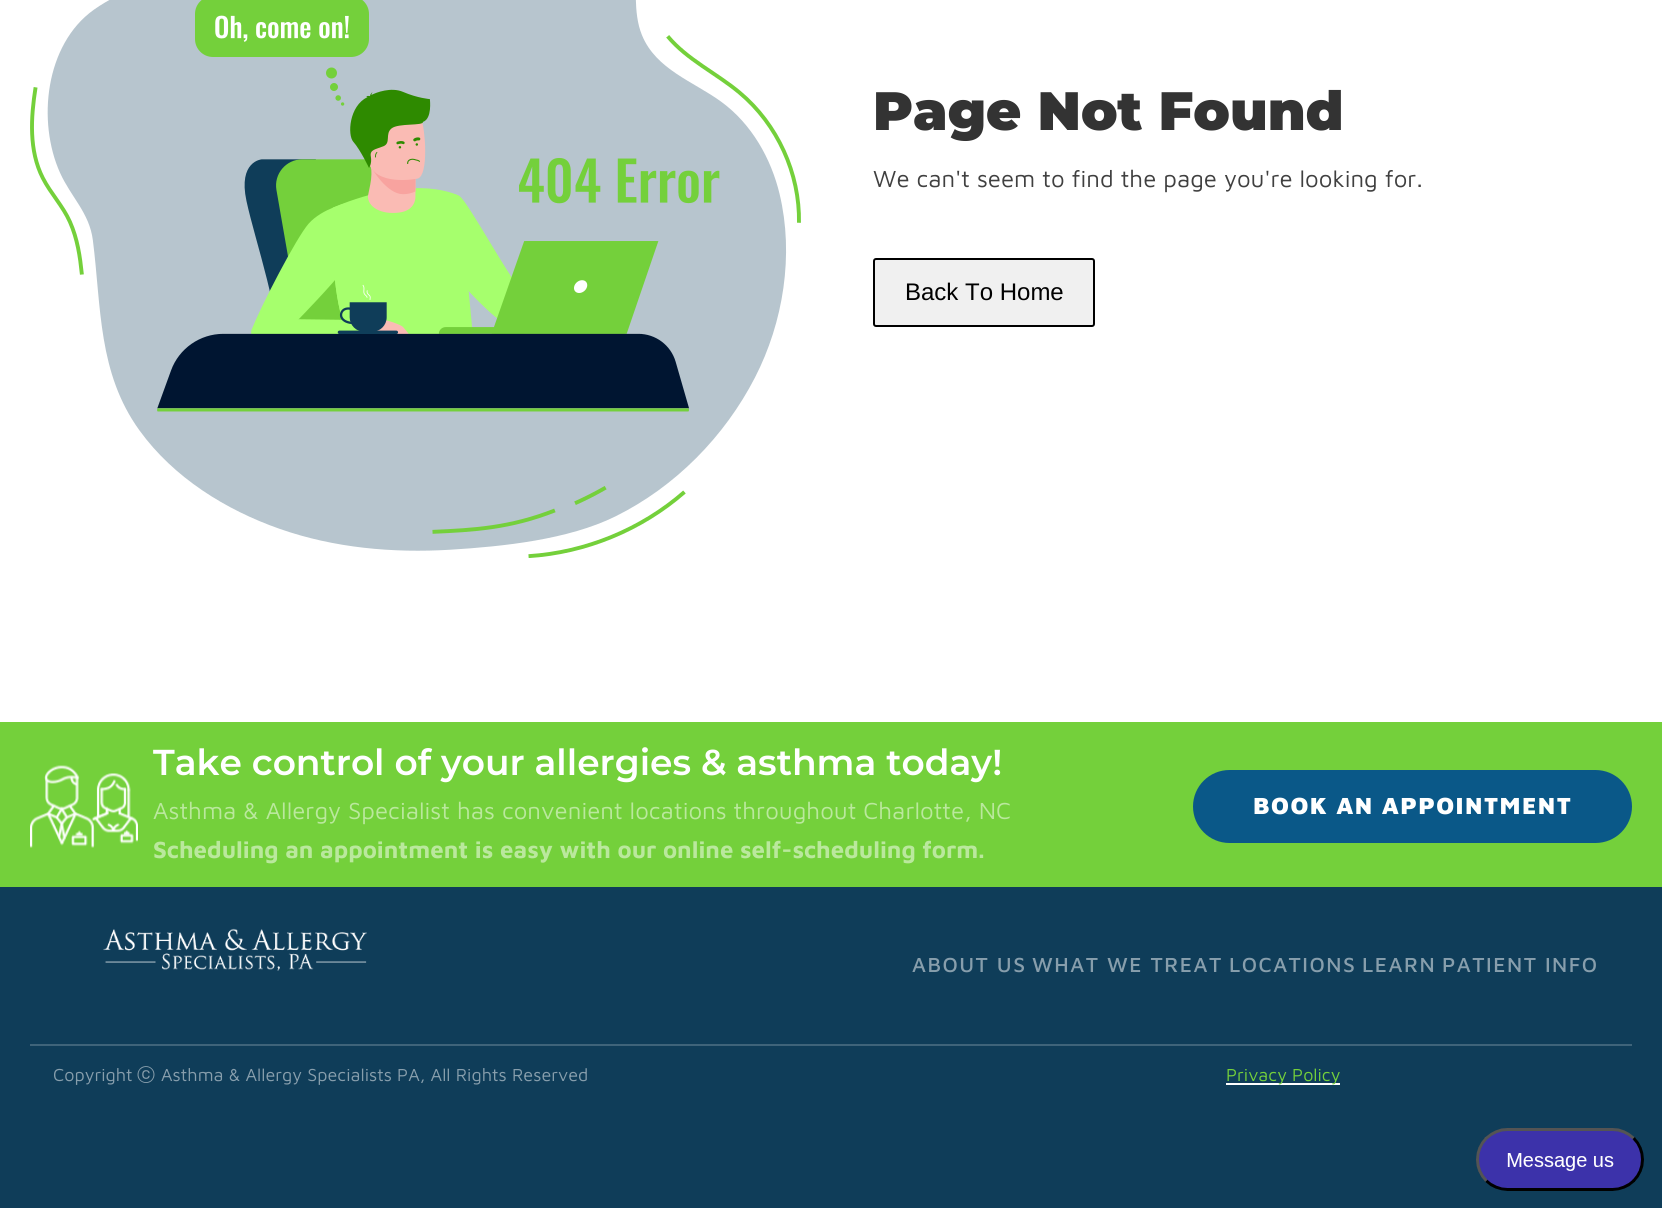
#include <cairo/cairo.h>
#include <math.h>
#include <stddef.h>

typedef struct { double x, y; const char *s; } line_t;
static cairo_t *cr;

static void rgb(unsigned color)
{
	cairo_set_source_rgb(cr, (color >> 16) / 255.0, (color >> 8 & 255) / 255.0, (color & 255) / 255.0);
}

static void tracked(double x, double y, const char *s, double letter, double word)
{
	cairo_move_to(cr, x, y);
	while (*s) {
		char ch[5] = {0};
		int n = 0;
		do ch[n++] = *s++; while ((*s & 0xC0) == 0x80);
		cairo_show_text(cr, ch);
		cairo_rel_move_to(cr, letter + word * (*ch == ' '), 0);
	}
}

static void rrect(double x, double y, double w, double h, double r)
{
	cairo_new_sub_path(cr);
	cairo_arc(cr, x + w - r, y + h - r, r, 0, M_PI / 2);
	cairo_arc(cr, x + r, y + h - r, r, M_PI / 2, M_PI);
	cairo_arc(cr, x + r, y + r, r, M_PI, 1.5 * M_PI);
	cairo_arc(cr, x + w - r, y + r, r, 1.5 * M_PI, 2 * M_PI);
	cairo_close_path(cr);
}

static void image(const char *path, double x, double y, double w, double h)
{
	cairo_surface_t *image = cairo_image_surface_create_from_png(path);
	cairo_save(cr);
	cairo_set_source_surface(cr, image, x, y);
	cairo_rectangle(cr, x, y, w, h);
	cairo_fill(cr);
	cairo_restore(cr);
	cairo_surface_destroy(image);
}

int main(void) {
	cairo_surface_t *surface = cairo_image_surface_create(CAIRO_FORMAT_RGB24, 1662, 1208);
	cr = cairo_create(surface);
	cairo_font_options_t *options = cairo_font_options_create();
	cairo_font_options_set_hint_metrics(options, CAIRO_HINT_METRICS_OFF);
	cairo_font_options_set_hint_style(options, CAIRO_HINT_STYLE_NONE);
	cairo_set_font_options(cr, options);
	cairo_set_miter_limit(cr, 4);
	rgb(0xffffff);
	cairo_paint(cr);
	image("img/1.png", 30, 0, 771, 558);
	rgb(0xf0f0f0);
	rrect(874, 259, 220, 67, 2);
	cairo_fill_preserve(cr);
	rgb(0x000000);
	cairo_stroke(cr);
	rgb(0x74d03b);
	cairo_rectangle(cr, 0, 722, 1662, 165);
	cairo_fill(cr);
	image("img/2.png", 30, 765, 108, 83);
	rgb(0x0a5888);
	rrect(1193, 770, 439, 73, 36.5);
	cairo_fill(cr);
	rgb(0x0f3d59);
	cairo_rectangle(cr, 0, 887, 1662, 321);
	cairo_fill(cr);
	image("img/3.png", 103, 928, 264, 43);
	rgb(0x3f647a);
	cairo_rectangle(cr, 30, 1044, 1602, 2);
	cairo_fill(cr);
	rgb(0xffffff);
	cairo_rectangle(cr, 1226, 1083, 114, 2);
	cairo_fill(cr);
	image("img/4.png", 1476, 1128, 168, 63);
	cairo_select_font_face(cr, "Montserrat Black", CAIRO_FONT_SLANT_NORMAL, CAIRO_FONT_WEIGHT_NORMAL);
	cairo_set_font_size(cr, 54);
	rgb(0x333333);
	cairo_move_to(cr, 873, 130);
	cairo_show_text(cr, "Page Not Found");
	cairo_select_font_face(cr, "Maven Pro", CAIRO_FONT_SLANT_NORMAL, CAIRO_FONT_WEIGHT_NORMAL);
	cairo_set_font_size(cr, 24);
	rgb(0x404040);
	cairo_move_to(cr, 873, 187);
	cairo_show_text(cr, "We can't seem to find the page you're looking for.");
	cairo_select_font_face(cr, "Liberation Sans", CAIRO_FONT_SLANT_NORMAL, CAIRO_FONT_WEIGHT_NORMAL);
	rgb(0x000000);
	cairo_move_to(cr, 905, 300);
	cairo_show_text(cr, "Back To Home");
	cairo_select_font_face(cr, "Montserrat SemiBold", CAIRO_FONT_SLANT_NORMAL, CAIRO_FONT_WEIGHT_NORMAL);
	cairo_set_font_size(cr, 36);
	rgb(0xffffff);
	cairo_move_to(cr, 153, 775);
	cairo_show_text(cr, "Take control of your allergies & asthma today!");
	cairo_select_font_face(cr, "Maven Pro", CAIRO_FONT_SLANT_NORMAL, CAIRO_FONT_WEIGHT_NORMAL);
	cairo_set_font_size(cr, 24);
	rgb(0xbae89d);
	cairo_move_to(cr, 153, 819);
	cairo_show_text(cr, "Asthma & Allergy Specialist has convenient locations throughout Charlotte, NC");
	cairo_select_font_face(cr, "Maven Pro", CAIRO_FONT_SLANT_NORMAL, CAIRO_FONT_WEIGHT_BOLD);
	cairo_move_to(cr, 153, 858);
	cairo_show_text(cr, "Scheduling an appointment is easy with our online self-scheduling form.");
	cairo_select_font_face(cr, "Maven Pro Black", CAIRO_FONT_SLANT_NORMAL, CAIRO_FONT_WEIGHT_NORMAL);
	rgb(0xffffff);
	tracked(1253, 814, "BOOK AN APPOINTMENT", 1.5, 0);
	cairo_select_font_face(cr, "Maven Pro Medium", CAIRO_FONT_SLANT_NORMAL, CAIRO_FONT_WEIGHT_NORMAL);
	cairo_set_font_size(cr, 21);
	rgb(0x879eac);
	{
		static const line_t items[] = {
			{912, 972, "ABOUT US"},
			{1032, 972, "WHAT WE TREAT"},
			{1229, 972, "LOCATIONS"},
			{1362, 972, "LEARN"},
			{1442, 972, "PATIENT INFO"},
		};
		for (size_t i = 0; i < sizeof items / sizeof *items; i++) {
			tracked(items[i].x, items[i].y, items[i].s, 1.5, 0);
		}
	}
	cairo_select_font_face(cr, "Maven Pro", CAIRO_FONT_SLANT_NORMAL, CAIRO_FONT_WEIGHT_NORMAL);
	cairo_set_font_size(cr, 18);
	cairo_move_to(cr, 53, 1081);
	cairo_show_text(cr, "Copyright");
	cairo_select_font_face(cr, "WenQuanYi Zen Hei Medium", CAIRO_FONT_SLANT_NORMAL, CAIRO_FONT_WEIGHT_NORMAL);
	cairo_move_to(cr, 137, 1081);
	cairo_show_text(cr, "ⓒ");
	cairo_select_font_face(cr, "Maven Pro", CAIRO_FONT_SLANT_NORMAL, CAIRO_FONT_WEIGHT_NORMAL);
	cairo_move_to(cr, 161, 1081);
	cairo_show_text(cr, "Asthma & Allergy Specialists PA, All Rights Reserved");
	rgb(0x74d03b);
	cairo_move_to(cr, 1226, 1081);
	cairo_show_text(cr, "Privacy Policy");
	cairo_surface_write_to_png(surface, "page.png");
	cairo_font_options_destroy(options);
	cairo_destroy(cr);
	cairo_surface_destroy(surface);
	return 0;
}
